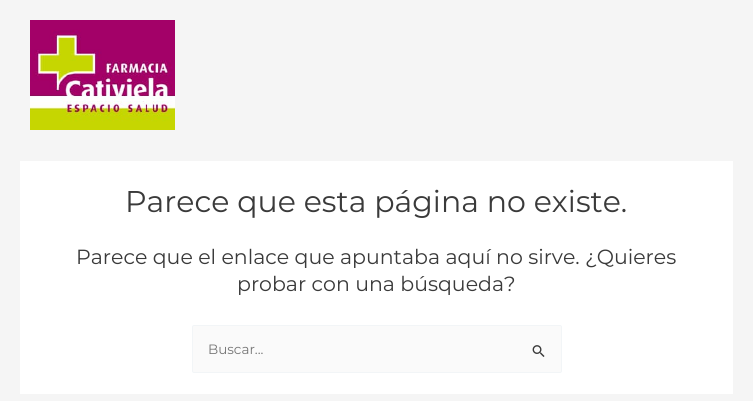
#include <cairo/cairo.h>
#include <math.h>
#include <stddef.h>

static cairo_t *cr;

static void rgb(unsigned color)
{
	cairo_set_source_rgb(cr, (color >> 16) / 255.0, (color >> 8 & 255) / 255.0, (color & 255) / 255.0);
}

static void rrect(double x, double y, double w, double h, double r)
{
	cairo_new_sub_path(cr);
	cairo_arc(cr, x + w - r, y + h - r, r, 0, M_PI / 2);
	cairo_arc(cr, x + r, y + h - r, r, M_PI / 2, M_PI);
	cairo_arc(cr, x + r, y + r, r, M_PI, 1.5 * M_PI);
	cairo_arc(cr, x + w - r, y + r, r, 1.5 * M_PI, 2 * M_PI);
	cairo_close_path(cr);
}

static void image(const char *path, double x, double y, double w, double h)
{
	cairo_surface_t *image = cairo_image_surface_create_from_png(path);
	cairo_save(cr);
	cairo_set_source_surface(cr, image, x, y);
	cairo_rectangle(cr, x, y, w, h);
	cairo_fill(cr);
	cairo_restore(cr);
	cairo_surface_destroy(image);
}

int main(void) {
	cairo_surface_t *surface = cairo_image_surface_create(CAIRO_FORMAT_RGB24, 753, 401);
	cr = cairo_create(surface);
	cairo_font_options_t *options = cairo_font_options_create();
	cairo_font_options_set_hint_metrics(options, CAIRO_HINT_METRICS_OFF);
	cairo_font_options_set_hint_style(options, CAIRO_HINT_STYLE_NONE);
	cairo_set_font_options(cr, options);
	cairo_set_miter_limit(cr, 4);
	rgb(0xf5f5f5);
	cairo_paint(cr);
	image("img/1.png", 30, 20, 145, 110);
	rgb(0xffffff);
	cairo_rectangle(cr, 20, 161, 713, 233);
	cairo_fill(cr);
	rgb(0xfafafa);
	rrect(192.5, 325.5, 369, 47, 1.5);
	cairo_fill_preserve(cr);
	rgb(0xf2f5f7);
	cairo_set_line_width(cr, 1);
	cairo_stroke(cr);
	image("img/2.png", 532, 345, 13, 12);
	cairo_select_font_face(cr, "Montserrat", CAIRO_FONT_SLANT_NORMAL, CAIRO_FONT_WEIGHT_NORMAL);
	cairo_set_font_size(cr, 30);
	rgb(0x3a3a3a);
	cairo_move_to(cr, 125, 212);
	cairo_show_text(cr, "Parece que esta página no existe.");
	cairo_set_font_size(cr, 20.5);
	cairo_move_to(cr, 76, 264);
	cairo_show_text(cr, "Parece que el enlace que apuntaba aquí no sirve. ¿Quieres");
	cairo_move_to(cr, 237, 291);
	cairo_show_text(cr, "probar con una búsqueda?");
	cairo_set_font_size(cr, 13.5);
	rgb(0x757575);
	cairo_move_to(cr, 208, 354);
	cairo_show_text(cr, "Buscar...");
	cairo_surface_write_to_png(surface, "page.png");
	cairo_font_options_destroy(options);
	cairo_destroy(cr);
	cairo_surface_destroy(surface);
	return 0;
}
